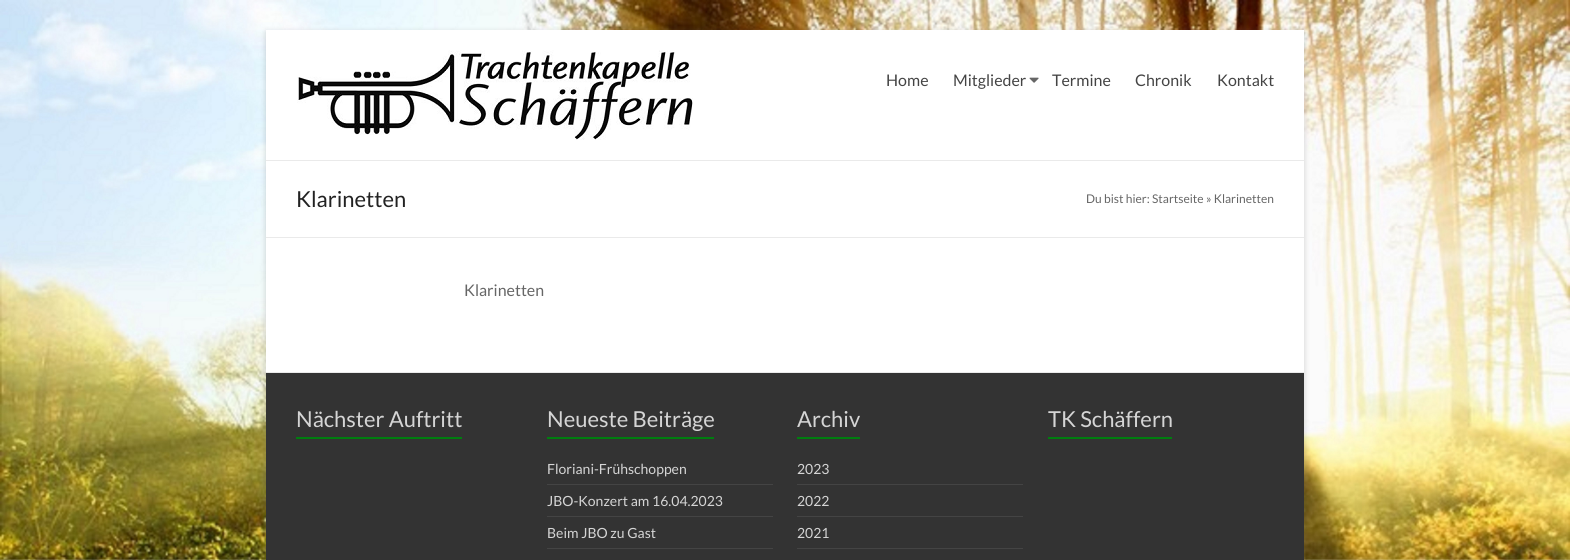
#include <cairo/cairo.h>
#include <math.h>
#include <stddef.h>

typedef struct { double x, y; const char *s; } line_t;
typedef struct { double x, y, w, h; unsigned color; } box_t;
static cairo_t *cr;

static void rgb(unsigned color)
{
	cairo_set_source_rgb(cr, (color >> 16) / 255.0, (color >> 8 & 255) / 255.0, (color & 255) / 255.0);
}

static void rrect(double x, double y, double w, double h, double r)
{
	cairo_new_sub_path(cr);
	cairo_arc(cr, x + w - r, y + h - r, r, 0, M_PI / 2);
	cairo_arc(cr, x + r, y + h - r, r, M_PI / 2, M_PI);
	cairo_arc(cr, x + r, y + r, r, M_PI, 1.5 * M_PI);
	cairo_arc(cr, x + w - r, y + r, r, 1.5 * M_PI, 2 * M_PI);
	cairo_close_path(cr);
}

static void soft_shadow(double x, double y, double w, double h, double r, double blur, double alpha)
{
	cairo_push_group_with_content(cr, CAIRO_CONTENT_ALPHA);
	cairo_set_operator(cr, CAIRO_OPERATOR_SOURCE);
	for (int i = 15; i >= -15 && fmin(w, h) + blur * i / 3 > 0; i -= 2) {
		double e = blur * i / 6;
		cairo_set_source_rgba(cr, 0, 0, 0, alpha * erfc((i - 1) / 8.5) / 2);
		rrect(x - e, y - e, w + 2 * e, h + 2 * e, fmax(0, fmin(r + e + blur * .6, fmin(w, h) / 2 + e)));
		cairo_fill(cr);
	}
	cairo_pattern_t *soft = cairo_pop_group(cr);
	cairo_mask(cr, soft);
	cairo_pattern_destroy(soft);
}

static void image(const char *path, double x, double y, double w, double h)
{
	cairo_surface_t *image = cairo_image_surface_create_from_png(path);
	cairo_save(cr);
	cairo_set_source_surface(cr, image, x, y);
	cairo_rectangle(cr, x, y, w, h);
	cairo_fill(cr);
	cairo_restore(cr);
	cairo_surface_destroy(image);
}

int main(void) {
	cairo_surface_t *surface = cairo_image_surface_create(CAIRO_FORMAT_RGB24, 1570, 560);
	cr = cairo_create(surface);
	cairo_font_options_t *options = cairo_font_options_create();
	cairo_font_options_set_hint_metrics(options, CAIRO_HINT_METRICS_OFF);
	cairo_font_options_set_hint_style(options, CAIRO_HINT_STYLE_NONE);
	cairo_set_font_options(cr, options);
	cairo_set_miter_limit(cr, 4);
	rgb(0xffffff);
	cairo_paint(cr);
	image("img/1.png", 0, 0, 1570, 560);
	rgb(0x646464);
	soft_shadow(266, 32, 1038, 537, 0, 3, 0.3);
	rgb(0xffffff);
	cairo_rectangle(cr, 266, 30, 1038, 342);
	cairo_fill(cr);
	rgb(0xeaeaea);
	cairo_rectangle(cr, 266, 160, 1038, 1);
	cairo_fill(cr);
	image("img/2.png", 297, 50, 396, 90);
	image("img/3.png", 1029, 77, 10, 6);
	{
		static const box_t items[] = {
			{266, 237, 1038, 1, 0xeaeaea},
			{266, 373, 1038, 187, 0x333333},
			{266, 372, 1038, 1, 0xeaeaea},
			{296, 437, 166, 2, 0x007e0f},
			{547, 437, 167, 2, 0x007e0f},
			{547, 484, 226, 1, 0x444444},
			{547, 516, 226, 1, 0x444444},
			{547, 548, 226, 1, 0x444444},
			{797, 437, 63, 2, 0x007e0f},
			{797, 484, 226, 1, 0x444444},
			{797, 516, 226, 1, 0x444444},
			{797, 548, 226, 1, 0x444444},
			{1048, 437, 124, 2, 0x007e0f},
		};
		for (size_t i = 0; i < sizeof items / sizeof *items; i++) {
			rgb(items[i].color);
			cairo_rectangle(cr, items[i].x, items[i].y, items[i].w, items[i].h);
			cairo_fill(cr);
		}
	}
	cairo_select_font_face(cr, "Lato", CAIRO_FONT_SLANT_NORMAL, CAIRO_FONT_WEIGHT_NORMAL);
	cairo_set_font_size(cr, 16);
	rgb(0x444444);
	{
		static const line_t items[] = {
			{886, 86, "Home"},
			{953, 86, "Mitglieder"},
			{1052, 86, "Termine"},
			{1135, 86, "Chronik"},
			{1217, 86, "Kontakt"},
		};
		for (size_t i = 0; i < sizeof items / sizeof *items; i++) {
			cairo_move_to(cr, items[i].x, items[i].y);
			cairo_show_text(cr, items[i].s);
		}
	}
	cairo_set_font_size(cr, 22);
	rgb(0x222222);
	cairo_move_to(cr, 296, 207);
	cairo_show_text(cr, "Klarinetten");
	cairo_set_font_size(cr, 12);
	rgb(0x666666);
	cairo_move_to(cr, 1086, 203);
	cairo_show_text(cr, "Du bist hier: Startseite » Klarinetten");
	cairo_set_font_size(cr, 16);
	cairo_move_to(cr, 464, 296);
	cairo_show_text(cr, "Klarinetten");
	cairo_set_font_size(cr, 22);
	rgb(0xd5d5d5);
	cairo_move_to(cr, 296, 427);
	cairo_show_text(cr, "Nächster Auftritt");
	cairo_move_to(cr, 547, 427);
	cairo_show_text(cr, "Neueste Beiträge");
	cairo_set_font_size(cr, 14);
	{
		static const line_t items[] = {
			{547, 474, "Floriani-Frühschoppen"},
			{547, 506, "JBO-Konzert am 16.04.2023"},
			{547, 538, "Beim JBO zu Gast"},
		};
		for (size_t i = 0; i < sizeof items / sizeof *items; i++) {
			cairo_move_to(cr, items[i].x, items[i].y);
			cairo_show_text(cr, items[i].s);
		}
	}
	cairo_set_font_size(cr, 22);
	cairo_move_to(cr, 797, 427);
	cairo_show_text(cr, "Archiv");
	cairo_set_font_size(cr, 14);
	{
		static const line_t items[] = {
			{797, 474, "2023"},
			{797, 506, "2022"},
			{797, 538, "2021"},
		};
		for (size_t i = 0; i < sizeof items / sizeof *items; i++) {
			cairo_move_to(cr, items[i].x, items[i].y);
			cairo_show_text(cr, items[i].s);
		}
	}
	cairo_set_font_size(cr, 22);
	cairo_move_to(cr, 1048, 427);
	cairo_show_text(cr, "TK Schäffern");
	cairo_surface_write_to_png(surface, "page.png");
	cairo_font_options_destroy(options);
	cairo_destroy(cr);
	cairo_surface_destroy(surface);
	return 0;
}
